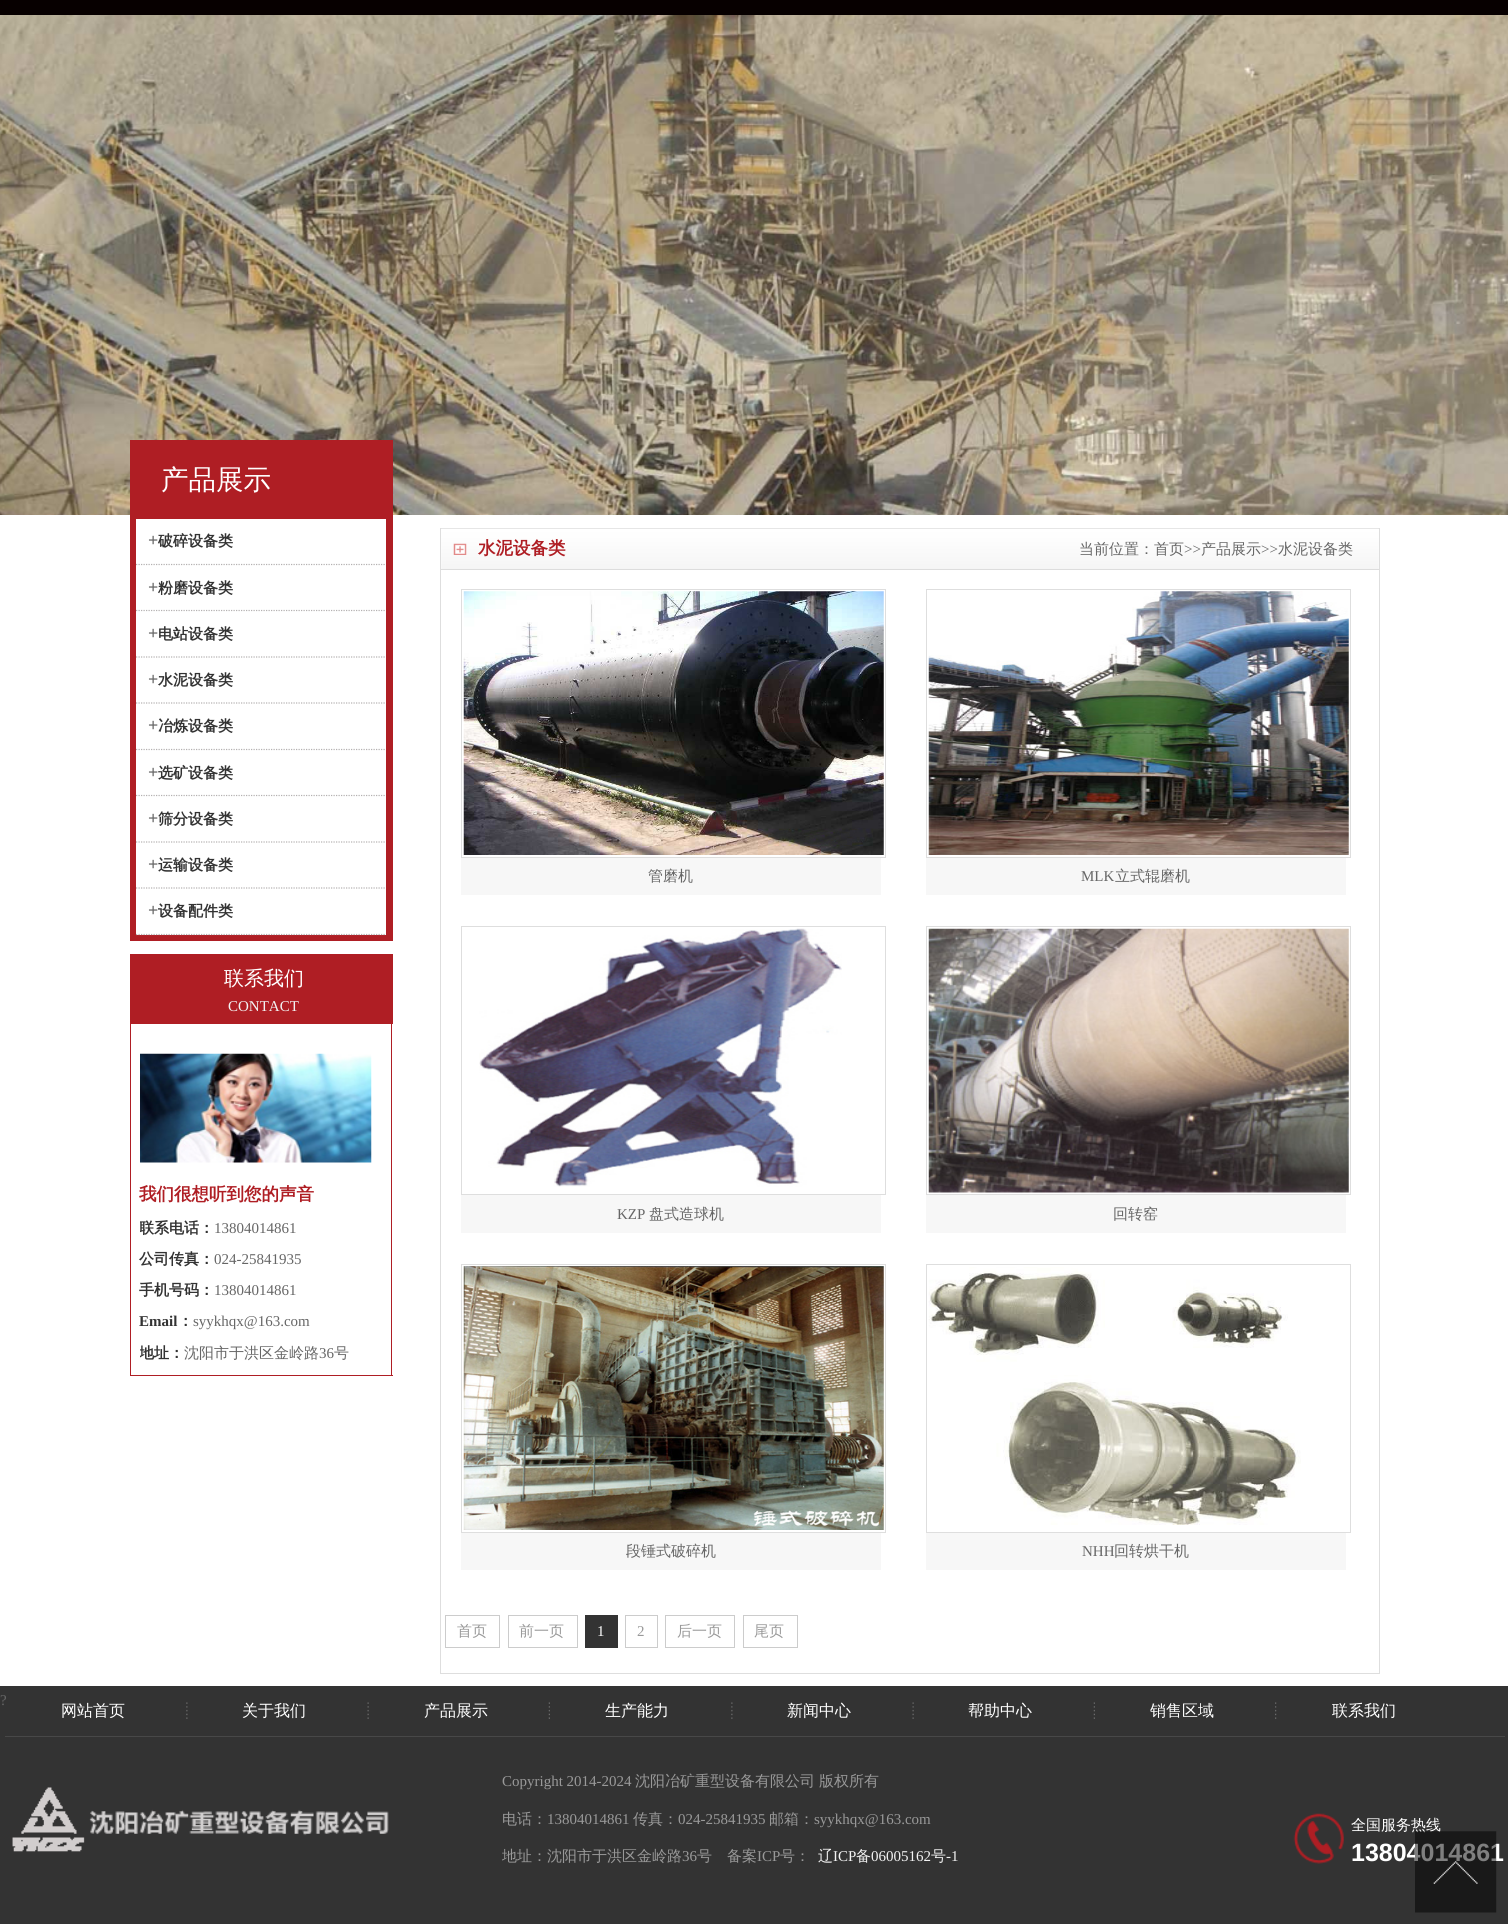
#include <cairo/cairo.h>
#include <math.h>
#include <stddef.h>

typedef struct { double x, y; const char *s; } line_t;
typedef struct { double x, y, w, h; unsigned color; } box_t;
static cairo_t *cr;

static void rgb(unsigned color)
{
	cairo_set_source_rgb(cr, (color >> 16) / 255.0, (color >> 8 & 255) / 255.0, (color & 255) / 255.0);
}

static void image(const char *path, double x, double y, double w, double h)
{
	cairo_surface_t *image = cairo_image_surface_create_from_png(path);
	cairo_save(cr);
	cairo_set_source_surface(cr, image, x, y);
	cairo_rectangle(cr, x, y, w, h);
	cairo_fill(cr);
	cairo_restore(cr);
	cairo_surface_destroy(image);
}

int main(void) {
	cairo_surface_t *surface = cairo_image_surface_create(CAIRO_FORMAT_RGB24, 1508, 1924);
	cr = cairo_create(surface);
	cairo_font_options_t *options = cairo_font_options_create();
	cairo_font_options_set_hint_metrics(options, CAIRO_HINT_METRICS_OFF);
	cairo_font_options_set_hint_style(options, CAIRO_HINT_STYLE_NONE);
	cairo_set_font_options(cr, options);
	cairo_set_miter_limit(cr, 4);
	rgb(0xffffff);
	cairo_paint(cr);
	rgb(0x070000);
	cairo_rectangle(cr, 0, 0, 1508, 15);
	cairo_fill(cr);
	image("img/1.png", 0, 15, 1508, 500);
	{
		static const box_t items[] = {
			{130, 440, 263, 79, 0xaf1e24},
			{386, 519, 7, 422, 0xaf1e24},
			{130, 935, 263, 6, 0xaf1e24},
			{130, 519, 6, 422, 0xaf1e24},
		};
		for (size_t i = 0; i < sizeof items / sizeof *items; i++) {
			rgb(items[i].color);
			cairo_rectangle(cr, items[i].x, items[i].y, items[i].w, items[i].h);
			cairo_fill(cr);
		}
	}
	cairo_new_path(cr);
	cairo_move_to(cr, 136, 564.5);
	cairo_line_to(cr, 386, 564.5);
	rgb(0xb4b1b1);
	cairo_set_line_width(cr, 1.2);
	cairo_set_dash(cr, (double[]){1.25, 1.25}, 2, 0);
	cairo_stroke(cr);
	cairo_new_path(cr);
	cairo_move_to(cr, 136, 610.5);
	cairo_line_to(cr, 386, 610.5);
	cairo_stroke(cr);
	cairo_new_path(cr);
	cairo_move_to(cr, 136, 657);
	cairo_line_to(cr, 386, 657);
	cairo_stroke(cr);
	cairo_new_path(cr);
	cairo_move_to(cr, 136, 703);
	cairo_line_to(cr, 386, 703);
	cairo_stroke(cr);
	cairo_new_path(cr);
	cairo_move_to(cr, 136, 749.5);
	cairo_line_to(cr, 386, 749.5);
	cairo_stroke(cr);
	cairo_new_path(cr);
	cairo_move_to(cr, 136, 795.5);
	cairo_line_to(cr, 386, 795.5);
	cairo_stroke(cr);
	cairo_new_path(cr);
	cairo_move_to(cr, 136, 842);
	cairo_line_to(cr, 386, 842);
	cairo_stroke(cr);
	cairo_new_path(cr);
	cairo_move_to(cr, 136, 888);
	cairo_line_to(cr, 386, 888);
	cairo_stroke(cr);
	cairo_new_path(cr);
	cairo_move_to(cr, 136, 934.5);
	cairo_line_to(cr, 386, 934.5);
	cairo_stroke(cr);
	{
		static const box_t items[] = {
			{130, 954, 263, 70, 0xaf1e24},
			{391, 1024, 1, 352, 0xaf1e24},
			{130, 1375, 263, 1, 0xaf1e24},
			{130, 1024, 1, 352, 0xaf1e24},
		};
		for (size_t i = 0; i < sizeof items / sizeof *items; i++) {
			rgb(items[i].color);
			cairo_rectangle(cr, items[i].x, items[i].y, items[i].w, items[i].h);
			cairo_fill(cr);
		}
	}
	image("img/2.png", 140, 1053, 232, 110);
	cairo_rectangle(cr, 440.5, 528.5, 939, 1145);
	rgb(0xdedede);
	cairo_set_line_width(cr, 1);
	cairo_set_dash(cr, NULL, 0, 0);
	cairo_stroke(cr);
	image("img/3.png", 441, 528, 938, 41);
	rgb(0xdddddd);
	cairo_rectangle(cr, 441, 569, 938, 1);
	cairo_fill(cr);
	image("img/4.png", 453, 543, 14, 12);
	cairo_rectangle(cr, 461.5, 589.5, 424, 268);
	rgb(0xdedede);
	cairo_stroke(cr);
	image("img/5.png", 463, 591, 421, 264);
	rgb(0xf7f7f7);
	cairo_rectangle(cr, 461, 858, 420, 37);
	cairo_fill(cr);
	cairo_rectangle(cr, 926.5, 589.5, 424, 268);
	rgb(0xdedede);
	cairo_stroke(cr);
	image("img/6.png", 928, 591, 421, 264);
	rgb(0xf7f7f7);
	cairo_rectangle(cr, 926, 858, 420, 37);
	cairo_fill(cr);
	cairo_rectangle(cr, 461.5, 926.5, 424, 268);
	rgb(0xdedede);
	cairo_stroke(cr);
	image("img/7.png", 479, 928, 363, 259);
	rgb(0xf7f7f7);
	cairo_rectangle(cr, 461, 1195, 420, 38);
	cairo_fill(cr);
	cairo_rectangle(cr, 926.5, 926.5, 424, 268);
	rgb(0xdedede);
	cairo_stroke(cr);
	image("img/8.png", 928, 928, 421, 265);
	rgb(0xf7f7f7);
	cairo_rectangle(cr, 926, 1195, 420, 38);
	cairo_fill(cr);
	cairo_rectangle(cr, 461.5, 1264.5, 424, 268);
	rgb(0xdedede);
	cairo_stroke(cr);
	image("img/9.png", 463, 1266, 421, 264);
	rgb(0xf7f7f7);
	cairo_rectangle(cr, 461, 1533, 420, 37);
	cairo_fill(cr);
	cairo_rectangle(cr, 926.5, 1264.5, 424, 268);
	rgb(0xdedede);
	cairo_stroke(cr);
	image("img/10.png", 928, 1267, 373, 258);
	rgb(0xf7f7f7);
	cairo_rectangle(cr, 926, 1533, 420, 37);
	cairo_fill(cr);
	cairo_rectangle(cr, 445.5, 1615.5, 54, 32);
	rgb(0xcccccc);
	cairo_stroke(cr);
	cairo_rectangle(cr, 508.5, 1615.5, 69, 32);
	cairo_stroke(cr);
	rgb(0x333333);
	cairo_rectangle(cr, 585, 1615, 33, 33);
	cairo_fill(cr);
	cairo_rectangle(cr, 625.5, 1615.5, 32, 32);
	rgb(0xcccccc);
	cairo_stroke(cr);
	cairo_rectangle(cr, 665.5, 1615.5, 69, 32);
	cairo_stroke(cr);
	cairo_rectangle(cr, 743.5, 1615.5, 54, 32);
	cairo_stroke(cr);
	rgb(0x333333);
	cairo_rectangle(cr, 0, 1686, 1508, 238);
	cairo_fill(cr);
	image("img/12.png", 186, 1702, 2, 17);
	image("img/13.png", 367, 1702, 2, 17);
	image("img/14.png", 548, 1702, 2, 17);
	image("img/12.png", 731, 1702, 2, 17);
	image("img/13.png", 912, 1702, 2, 17);
	image("img/14.png", 1093, 1702, 2, 17);
	image("img/15.png", 1275, 1702, 2, 17);
	image("img/16.png", 12, 1787, 377, 65);
	rgb(0x484848);
	cairo_rectangle(cr, 5, 1736, 1500, 1);
	cairo_fill(cr);
	image("img/17.png", 1293, 1813, 51, 51);
	cairo_select_font_face(cr, "WenQuanYi Zen Hei Medium", CAIRO_FONT_SLANT_NORMAL, CAIRO_FONT_WEIGHT_NORMAL);
	cairo_set_font_size(cr, 27.5);
	rgb(0xffffff);
	cairo_move_to(cr, 161, 489);
	cairo_show_text(cr, "产品展示");
	cairo_select_font_face(cr, "Liberation Serif", CAIRO_FONT_SLANT_NORMAL, CAIRO_FONT_WEIGHT_BOLD);
	cairo_set_font_size(cr, 18);
	rgb(0x666666);
	cairo_move_to(cr, 148, 546);
	cairo_show_text(cr, "+");
	cairo_select_font_face(cr, "WenQuanYi Zen Hei", CAIRO_FONT_SLANT_NORMAL, CAIRO_FONT_WEIGHT_BOLD);
	cairo_set_font_size(cr, 15);
	rgb(0x333333);
	cairo_move_to(cr, 158, 546);
	cairo_show_text(cr, "破碎设备类");
	cairo_select_font_face(cr, "Liberation Serif", CAIRO_FONT_SLANT_NORMAL, CAIRO_FONT_WEIGHT_BOLD);
	cairo_set_font_size(cr, 18);
	rgb(0x666666);
	cairo_move_to(cr, 148, 593);
	cairo_show_text(cr, "+");
	cairo_select_font_face(cr, "WenQuanYi Zen Hei", CAIRO_FONT_SLANT_NORMAL, CAIRO_FONT_WEIGHT_BOLD);
	cairo_set_font_size(cr, 15);
	rgb(0x333333);
	cairo_move_to(cr, 158, 593);
	cairo_show_text(cr, "粉磨设备类");
	cairo_select_font_face(cr, "Liberation Serif", CAIRO_FONT_SLANT_NORMAL, CAIRO_FONT_WEIGHT_BOLD);
	cairo_set_font_size(cr, 18);
	rgb(0x666666);
	cairo_move_to(cr, 148, 639);
	cairo_show_text(cr, "+");
	cairo_select_font_face(cr, "WenQuanYi Zen Hei", CAIRO_FONT_SLANT_NORMAL, CAIRO_FONT_WEIGHT_BOLD);
	cairo_set_font_size(cr, 15);
	rgb(0x333333);
	cairo_move_to(cr, 158, 639);
	cairo_show_text(cr, "电站设备类");
	cairo_select_font_face(cr, "Liberation Serif", CAIRO_FONT_SLANT_NORMAL, CAIRO_FONT_WEIGHT_BOLD);
	cairo_set_font_size(cr, 18);
	rgb(0x666666);
	cairo_move_to(cr, 148, 685);
	cairo_show_text(cr, "+");
	cairo_select_font_face(cr, "WenQuanYi Zen Hei", CAIRO_FONT_SLANT_NORMAL, CAIRO_FONT_WEIGHT_BOLD);
	cairo_set_font_size(cr, 15);
	rgb(0x333333);
	cairo_move_to(cr, 158, 685);
	cairo_show_text(cr, "水泥设备类");
	cairo_select_font_face(cr, "Liberation Serif", CAIRO_FONT_SLANT_NORMAL, CAIRO_FONT_WEIGHT_BOLD);
	cairo_set_font_size(cr, 18);
	rgb(0x666666);
	cairo_move_to(cr, 148, 731);
	cairo_show_text(cr, "+");
	cairo_select_font_face(cr, "WenQuanYi Zen Hei", CAIRO_FONT_SLANT_NORMAL, CAIRO_FONT_WEIGHT_BOLD);
	cairo_set_font_size(cr, 15);
	rgb(0x333333);
	cairo_move_to(cr, 158, 731);
	cairo_show_text(cr, "冶炼设备类");
	cairo_select_font_face(cr, "Liberation Serif", CAIRO_FONT_SLANT_NORMAL, CAIRO_FONT_WEIGHT_BOLD);
	cairo_set_font_size(cr, 18);
	rgb(0x666666);
	cairo_move_to(cr, 148, 778);
	cairo_show_text(cr, "+");
	cairo_select_font_face(cr, "WenQuanYi Zen Hei", CAIRO_FONT_SLANT_NORMAL, CAIRO_FONT_WEIGHT_BOLD);
	cairo_set_font_size(cr, 15);
	rgb(0x333333);
	cairo_move_to(cr, 158, 778);
	cairo_show_text(cr, "选矿设备类");
	cairo_select_font_face(cr, "Liberation Serif", CAIRO_FONT_SLANT_NORMAL, CAIRO_FONT_WEIGHT_BOLD);
	cairo_set_font_size(cr, 18);
	rgb(0x666666);
	cairo_move_to(cr, 148, 824);
	cairo_show_text(cr, "+");
	cairo_select_font_face(cr, "WenQuanYi Zen Hei", CAIRO_FONT_SLANT_NORMAL, CAIRO_FONT_WEIGHT_BOLD);
	cairo_set_font_size(cr, 15);
	rgb(0x333333);
	cairo_move_to(cr, 158, 824);
	cairo_show_text(cr, "筛分设备类");
	cairo_select_font_face(cr, "Liberation Serif", CAIRO_FONT_SLANT_NORMAL, CAIRO_FONT_WEIGHT_BOLD);
	cairo_set_font_size(cr, 18);
	rgb(0x666666);
	cairo_move_to(cr, 148, 870);
	cairo_show_text(cr, "+");
	cairo_select_font_face(cr, "WenQuanYi Zen Hei", CAIRO_FONT_SLANT_NORMAL, CAIRO_FONT_WEIGHT_BOLD);
	cairo_set_font_size(cr, 15);
	rgb(0x333333);
	cairo_move_to(cr, 158, 870);
	cairo_show_text(cr, "运输设备类");
	cairo_select_font_face(cr, "Liberation Serif", CAIRO_FONT_SLANT_NORMAL, CAIRO_FONT_WEIGHT_BOLD);
	cairo_set_font_size(cr, 18);
	rgb(0x666666);
	cairo_move_to(cr, 148, 916);
	cairo_show_text(cr, "+");
	cairo_select_font_face(cr, "WenQuanYi Zen Hei", CAIRO_FONT_SLANT_NORMAL, CAIRO_FONT_WEIGHT_BOLD);
	cairo_set_font_size(cr, 15);
	rgb(0x333333);
	cairo_move_to(cr, 158, 916);
	cairo_show_text(cr, "设备配件类");
	cairo_select_font_face(cr, "WenQuanYi Zen Hei Medium", CAIRO_FONT_SLANT_NORMAL, CAIRO_FONT_WEIGHT_NORMAL);
	cairo_set_font_size(cr, 20);
	rgb(0xffffff);
	cairo_move_to(cr, 224, 985);
	cairo_show_text(cr, "联系我们");
	cairo_select_font_face(cr, "Liberation Serif", CAIRO_FONT_SLANT_NORMAL, CAIRO_FONT_WEIGHT_NORMAL);
	cairo_set_font_size(cr, 15);
	rgb(0xf3f3f3);
	cairo_move_to(cr, 228, 1011);
	cairo_show_text(cr, "CONTACT");
	cairo_select_font_face(cr, "WenQuanYi Zen Hei", CAIRO_FONT_SLANT_NORMAL, CAIRO_FONT_WEIGHT_BOLD);
	cairo_set_font_size(cr, 17.5);
	rgb(0xaf1e24);
	cairo_move_to(cr, 139, 1200);
	cairo_show_text(cr, "我们很想听到您的声音");
	cairo_save(cr);
	cairo_rectangle(cr, 140, 1213, 243, 31);
	cairo_clip(cr);
	cairo_set_font_size(cr, 15);
	rgb(0x333333);
	cairo_move_to(cr, 139, 1233);
	cairo_show_text(cr, "联系电话：");
	cairo_restore(cr);
	cairo_select_font_face(cr, "Liberation Serif", CAIRO_FONT_SLANT_NORMAL, CAIRO_FONT_WEIGHT_NORMAL);
	cairo_set_font_size(cr, 15);
	rgb(0x666666);
	cairo_move_to(cr, 214, 1233);
	cairo_show_text(cr, "13804014861");
	cairo_select_font_face(cr, "WenQuanYi Zen Hei", CAIRO_FONT_SLANT_NORMAL, CAIRO_FONT_WEIGHT_BOLD);
	rgb(0x333333);
	cairo_move_to(cr, 139, 1264);
	cairo_show_text(cr, "公司传真：");
	cairo_select_font_face(cr, "Liberation Serif", CAIRO_FONT_SLANT_NORMAL, CAIRO_FONT_WEIGHT_NORMAL);
	rgb(0x666666);
	cairo_move_to(cr, 214, 1264);
	cairo_show_text(cr, "024-25841935");
	cairo_select_font_face(cr, "WenQuanYi Zen Hei", CAIRO_FONT_SLANT_NORMAL, CAIRO_FONT_WEIGHT_BOLD);
	rgb(0x333333);
	cairo_move_to(cr, 139, 1295);
	cairo_show_text(cr, "手机号码：");
	cairo_select_font_face(cr, "Liberation Serif", CAIRO_FONT_SLANT_NORMAL, CAIRO_FONT_WEIGHT_NORMAL);
	rgb(0x666666);
	cairo_move_to(cr, 214, 1295);
	cairo_show_text(cr, "13804014861");
	cairo_select_font_face(cr, "Liberation Serif", CAIRO_FONT_SLANT_NORMAL, CAIRO_FONT_WEIGHT_BOLD);
	rgb(0x333333);
	cairo_move_to(cr, 139, 1326);
	cairo_show_text(cr, "Email");
	cairo_select_font_face(cr, "WenQuanYi Zen Hei", CAIRO_FONT_SLANT_NORMAL, CAIRO_FONT_WEIGHT_BOLD);
	cairo_move_to(cr, 178, 1326);
	cairo_show_text(cr, "：");
	cairo_select_font_face(cr, "Liberation Serif", CAIRO_FONT_SLANT_NORMAL, CAIRO_FONT_WEIGHT_NORMAL);
	rgb(0x666666);
	cairo_move_to(cr, 193, 1326);
	cairo_show_text(cr, "syykhqx@163.com");
	cairo_save(cr);
	cairo_rectangle(cr, 140, 1338, 243, 31);
	cairo_clip(cr);
	cairo_select_font_face(cr, "WenQuanYi Zen Hei", CAIRO_FONT_SLANT_NORMAL, CAIRO_FONT_WEIGHT_BOLD);
	rgb(0x333333);
	cairo_move_to(cr, 139, 1358);
	cairo_show_text(cr, "地址：");
	cairo_restore(cr);
	cairo_select_font_face(cr, "WenQuanYi Zen Hei Medium", CAIRO_FONT_SLANT_NORMAL, CAIRO_FONT_WEIGHT_NORMAL);
	cairo_move_to(cr, 184, 1358);
	cairo_show_text(cr, "沈阳市于洪区金岭路");
	cairo_select_font_face(cr, "Liberation Serif", CAIRO_FONT_SLANT_NORMAL, CAIRO_FONT_WEIGHT_NORMAL);
	cairo_move_to(cr, 319, 1358);
	cairo_show_text(cr, "36");
	cairo_select_font_face(cr, "WenQuanYi Zen Hei Medium", CAIRO_FONT_SLANT_NORMAL, CAIRO_FONT_WEIGHT_NORMAL);
	cairo_move_to(cr, 334, 1358);
	cairo_show_text(cr, "号");
	cairo_select_font_face(cr, "WenQuanYi Zen Hei", CAIRO_FONT_SLANT_NORMAL, CAIRO_FONT_WEIGHT_BOLD);
	cairo_set_font_size(cr, 17.5);
	rgb(0xaf1e24);
	cairo_move_to(cr, 478, 554);
	cairo_show_text(cr, "水泥设备类");
	cairo_select_font_face(cr, "WenQuanYi Zen Hei Medium", CAIRO_FONT_SLANT_NORMAL, CAIRO_FONT_WEIGHT_NORMAL);
	cairo_set_font_size(cr, 15);
	rgb(0x666666);
	cairo_move_to(cr, 1079, 554);
	cairo_show_text(cr, "当前位置：首页");
	cairo_select_font_face(cr, "Liberation Serif", CAIRO_FONT_SLANT_NORMAL, CAIRO_FONT_WEIGHT_NORMAL);
	cairo_move_to(cr, 1184, 554);
	cairo_show_text(cr, ">>");
	cairo_select_font_face(cr, "WenQuanYi Zen Hei Medium", CAIRO_FONT_SLANT_NORMAL, CAIRO_FONT_WEIGHT_NORMAL);
	cairo_move_to(cr, 1201, 554);
	cairo_show_text(cr, "产品展示");
	cairo_select_font_face(cr, "Liberation Serif", CAIRO_FONT_SLANT_NORMAL, CAIRO_FONT_WEIGHT_NORMAL);
	cairo_move_to(cr, 1261, 554);
	cairo_show_text(cr, ">>");
	cairo_select_font_face(cr, "WenQuanYi Zen Hei Medium", CAIRO_FONT_SLANT_NORMAL, CAIRO_FONT_WEIGHT_NORMAL);
	cairo_move_to(cr, 1278, 554);
	cairo_show_text(cr, "水泥设备类");
	cairo_move_to(cr, 648, 881);
	cairo_show_text(cr, "管磨机");
	cairo_select_font_face(cr, "Liberation Serif", CAIRO_FONT_SLANT_NORMAL, CAIRO_FONT_WEIGHT_NORMAL);
	cairo_move_to(cr, 1081, 881);
	cairo_show_text(cr, "MLK");
	cairo_select_font_face(cr, "WenQuanYi Zen Hei Medium", CAIRO_FONT_SLANT_NORMAL, CAIRO_FONT_WEIGHT_NORMAL);
	cairo_move_to(cr, 1115, 881);
	cairo_show_text(cr, "立式辊磨机");
	cairo_select_font_face(cr, "Liberation Serif", CAIRO_FONT_SLANT_NORMAL, CAIRO_FONT_WEIGHT_NORMAL);
	cairo_move_to(cr, 617, 1219);
	cairo_show_text(cr, "KZP");
	cairo_select_font_face(cr, "WenQuanYi Zen Hei Medium", CAIRO_FONT_SLANT_NORMAL, CAIRO_FONT_WEIGHT_NORMAL);
	{
		static const line_t items[] = {
			{649, 1219, "盘式造球机"},
			{1113, 1219, "回转窑"},
			{626, 1556, "段锤式破碎机"},
		};
		for (size_t i = 0; i < sizeof items / sizeof *items; i++) {
			cairo_move_to(cr, items[i].x, items[i].y);
			cairo_show_text(cr, items[i].s);
		}
	}
	cairo_select_font_face(cr, "Liberation Serif", CAIRO_FONT_SLANT_NORMAL, CAIRO_FONT_WEIGHT_NORMAL);
	cairo_move_to(cr, 1082, 1556);
	cairo_show_text(cr, "NHH");
	cairo_select_font_face(cr, "WenQuanYi Zen Hei Medium", CAIRO_FONT_SLANT_NORMAL, CAIRO_FONT_WEIGHT_NORMAL);
	cairo_move_to(cr, 1114, 1556);
	cairo_show_text(cr, "回转烘干机");
	rgb(0x999999);
	cairo_move_to(cr, 457, 1636);
	cairo_show_text(cr, "首页");
	cairo_move_to(cr, 519, 1636);
	cairo_show_text(cr, "前一页");
	cairo_select_font_face(cr, "Liberation Serif", CAIRO_FONT_SLANT_NORMAL, CAIRO_FONT_WEIGHT_NORMAL);
	rgb(0xffffff);
	cairo_move_to(cr, 597, 1636);
	cairo_show_text(cr, "1");
	rgb(0x999999);
	cairo_move_to(cr, 637, 1636);
	cairo_show_text(cr, "2");
	cairo_select_font_face(cr, "WenQuanYi Zen Hei Medium", CAIRO_FONT_SLANT_NORMAL, CAIRO_FONT_WEIGHT_NORMAL);
	cairo_move_to(cr, 677, 1636);
	cairo_show_text(cr, "后一页");
	cairo_move_to(cr, 754, 1636);
	cairo_show_text(cr, "尾页");
	cairo_select_font_face(cr, "Liberation Serif", CAIRO_FONT_SLANT_NORMAL, CAIRO_FONT_WEIGHT_NORMAL);
	rgb(0x666666);
	cairo_move_to(cr, 0, 1705);
	cairo_show_text(cr, "?");
	cairo_select_font_face(cr, "WenQuanYi Zen Hei Medium", CAIRO_FONT_SLANT_NORMAL, CAIRO_FONT_WEIGHT_NORMAL);
	cairo_set_font_size(cr, 16);
	rgb(0xffffff);
	{
		static const line_t items[] = {
			{61, 1716, "网站首页"},
			{242, 1716, "关于我们"},
			{424, 1716, "产品展示"},
			{605, 1716, "生产能力"},
			{787, 1716, "新闻中心"},
			{968, 1716, "帮助中心"},
			{1150, 1716, "销售区域"},
			{1332, 1716, "联系我们"},
		};
		for (size_t i = 0; i < sizeof items / sizeof *items; i++) {
			cairo_move_to(cr, items[i].x, items[i].y);
			cairo_show_text(cr, items[i].s);
		}
	}
	cairo_select_font_face(cr, "Liberation Serif", CAIRO_FONT_SLANT_NORMAL, CAIRO_FONT_WEIGHT_NORMAL);
	cairo_set_font_size(cr, 15);
	rgb(0x999999);
	cairo_move_to(cr, 502, 1786);
	cairo_show_text(cr, "Copyright 2014-2024");
	cairo_select_font_face(cr, "WenQuanYi Zen Hei Medium", CAIRO_FONT_SLANT_NORMAL, CAIRO_FONT_WEIGHT_NORMAL);
	{
		static const line_t items[] = {
			{635, 1786, "沈阳冶矿重型设备有限公司"},
			{819, 1786, "版权所有"},
			{502, 1824, "电话："},
		};
		for (size_t i = 0; i < sizeof items / sizeof *items; i++) {
			cairo_move_to(cr, items[i].x, items[i].y);
			cairo_show_text(cr, items[i].s);
		}
	}
	cairo_select_font_face(cr, "Liberation Serif", CAIRO_FONT_SLANT_NORMAL, CAIRO_FONT_WEIGHT_NORMAL);
	cairo_move_to(cr, 547, 1824);
	cairo_show_text(cr, "13804014861");
	cairo_select_font_face(cr, "WenQuanYi Zen Hei Medium", CAIRO_FONT_SLANT_NORMAL, CAIRO_FONT_WEIGHT_NORMAL);
	cairo_move_to(cr, 633, 1824);
	cairo_show_text(cr, "传真：");
	cairo_select_font_face(cr, "Liberation Serif", CAIRO_FONT_SLANT_NORMAL, CAIRO_FONT_WEIGHT_NORMAL);
	cairo_move_to(cr, 678, 1824);
	cairo_show_text(cr, "024-25841935");
	cairo_select_font_face(cr, "WenQuanYi Zen Hei Medium", CAIRO_FONT_SLANT_NORMAL, CAIRO_FONT_WEIGHT_NORMAL);
	cairo_move_to(cr, 769, 1824);
	cairo_show_text(cr, "邮箱：");
	cairo_select_font_face(cr, "Liberation Serif", CAIRO_FONT_SLANT_NORMAL, CAIRO_FONT_WEIGHT_NORMAL);
	cairo_move_to(cr, 814, 1824);
	cairo_show_text(cr, "syykhqx@163.com");
	cairo_select_font_face(cr, "WenQuanYi Zen Hei Medium", CAIRO_FONT_SLANT_NORMAL, CAIRO_FONT_WEIGHT_NORMAL);
	cairo_move_to(cr, 502, 1861);
	cairo_show_text(cr, "地址：沈阳市于洪区金岭路");
	cairo_select_font_face(cr, "Liberation Serif", CAIRO_FONT_SLANT_NORMAL, CAIRO_FONT_WEIGHT_NORMAL);
	cairo_move_to(cr, 682, 1861);
	cairo_show_text(cr, "36");
	cairo_select_font_face(cr, "WenQuanYi Zen Hei Medium", CAIRO_FONT_SLANT_NORMAL, CAIRO_FONT_WEIGHT_NORMAL);
	cairo_move_to(cr, 697, 1861);
	cairo_show_text(cr, "号");
	cairo_move_to(cr, 727, 1861);
	cairo_show_text(cr, "备案");
	cairo_select_font_face(cr, "Liberation Serif", CAIRO_FONT_SLANT_NORMAL, CAIRO_FONT_WEIGHT_NORMAL);
	cairo_move_to(cr, 757, 1861);
	cairo_show_text(cr, "ICP");
	cairo_select_font_face(cr, "WenQuanYi Zen Hei Medium", CAIRO_FONT_SLANT_NORMAL, CAIRO_FONT_WEIGHT_NORMAL);
	cairo_move_to(cr, 780, 1861);
	cairo_show_text(cr, "号：");
	rgb(0xf3f3f3);
	cairo_move_to(cr, 818, 1861);
	cairo_show_text(cr, "辽");
	cairo_select_font_face(cr, "Liberation Serif", CAIRO_FONT_SLANT_NORMAL, CAIRO_FONT_WEIGHT_NORMAL);
	cairo_move_to(cr, 833, 1861);
	cairo_show_text(cr, "ICP");
	cairo_select_font_face(cr, "WenQuanYi Zen Hei Medium", CAIRO_FONT_SLANT_NORMAL, CAIRO_FONT_WEIGHT_NORMAL);
	cairo_move_to(cr, 856, 1861);
	cairo_show_text(cr, "备");
	cairo_select_font_face(cr, "Liberation Serif", CAIRO_FONT_SLANT_NORMAL, CAIRO_FONT_WEIGHT_NORMAL);
	cairo_move_to(cr, 871, 1861);
	cairo_show_text(cr, "06005162");
	cairo_select_font_face(cr, "WenQuanYi Zen Hei Medium", CAIRO_FONT_SLANT_NORMAL, CAIRO_FONT_WEIGHT_NORMAL);
	cairo_move_to(cr, 931, 1861);
	cairo_show_text(cr, "号");
	cairo_select_font_face(cr, "Liberation Serif", CAIRO_FONT_SLANT_NORMAL, CAIRO_FONT_WEIGHT_NORMAL);
	cairo_move_to(cr, 946, 1861);
	cairo_show_text(cr, "-1");
	cairo_select_font_face(cr, "WenQuanYi Zen Hei Medium", CAIRO_FONT_SLANT_NORMAL, CAIRO_FONT_WEIGHT_NORMAL);
	rgb(0xffffff);
	cairo_move_to(cr, 1351, 1830);
	cairo_show_text(cr, "全国服务热线");
	cairo_select_font_face(cr, "Liberation Sans", CAIRO_FONT_SLANT_NORMAL, CAIRO_FONT_WEIGHT_BOLD);
	cairo_set_font_size(cr, 25);
	cairo_move_to(cr, 1351, 1861);
	cairo_show_text(cr, "13804014861");
	image("img/11.png", 1415, 1831, 82, 82);
	cairo_surface_write_to_png(surface, "page.png");
	cairo_font_options_destroy(options);
	cairo_destroy(cr);
	cairo_surface_destroy(surface);
	return 0;
}
